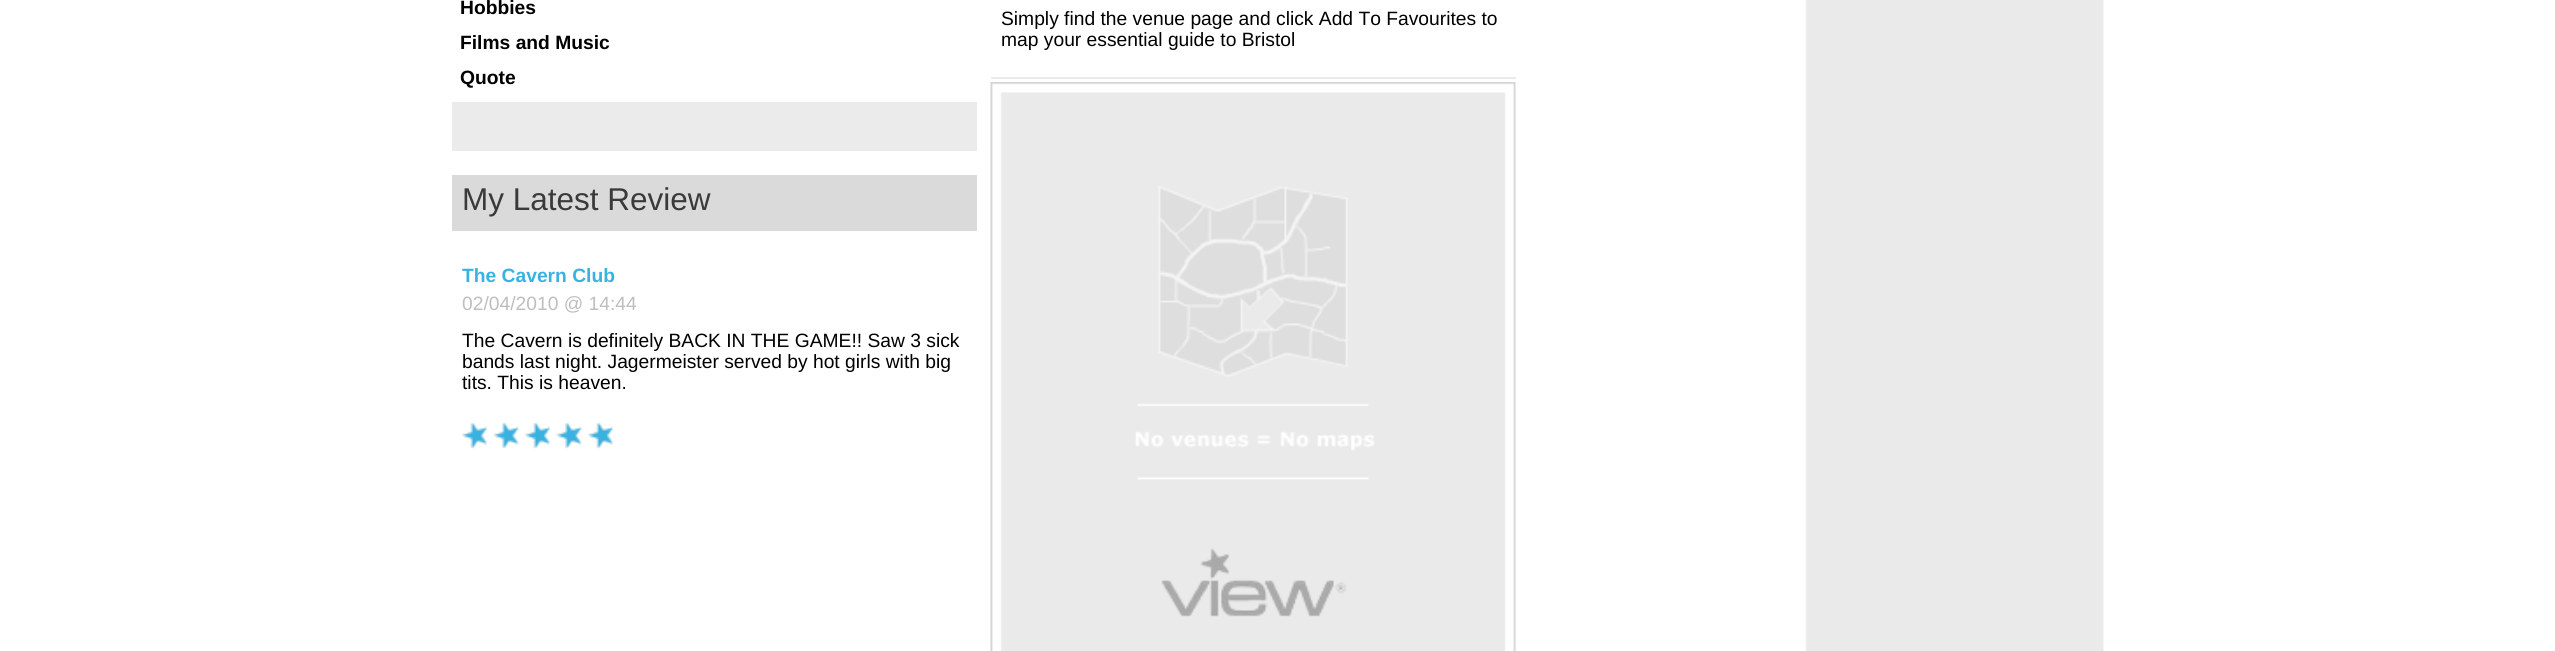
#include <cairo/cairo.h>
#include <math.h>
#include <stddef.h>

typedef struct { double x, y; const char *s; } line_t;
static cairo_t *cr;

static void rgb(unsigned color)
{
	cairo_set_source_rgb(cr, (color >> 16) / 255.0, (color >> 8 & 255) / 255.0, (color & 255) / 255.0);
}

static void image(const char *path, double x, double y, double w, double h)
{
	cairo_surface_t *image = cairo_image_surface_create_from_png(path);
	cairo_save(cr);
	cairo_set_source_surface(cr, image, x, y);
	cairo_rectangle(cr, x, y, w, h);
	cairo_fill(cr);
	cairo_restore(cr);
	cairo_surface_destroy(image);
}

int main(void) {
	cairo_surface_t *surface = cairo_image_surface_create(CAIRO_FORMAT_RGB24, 2555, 651);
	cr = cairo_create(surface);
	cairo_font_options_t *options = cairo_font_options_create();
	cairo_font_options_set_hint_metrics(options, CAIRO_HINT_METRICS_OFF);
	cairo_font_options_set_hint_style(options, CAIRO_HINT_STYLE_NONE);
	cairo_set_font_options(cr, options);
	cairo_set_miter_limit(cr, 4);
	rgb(0xffffff);
	cairo_paint(cr);
	image("img/1.png", 1805, 0, 299, 651);
	rgb(0xebebeb);
	cairo_rectangle(cr, 452, 102, 525, 49);
	cairo_fill(cr);
	rgb(0xdadada);
	cairo_rectangle(cr, 452, 175, 525, 56);
	cairo_fill(cr);
	image("img/2.png", 462, 422, 25, 27);
	image("img/3.png", 493, 423, 26, 26);
	image("img/4.png", 525, 422, 25, 27);
	image("img/5.png", 556, 423, 26, 26);
	image("img/6.png", 588, 422, 25, 27);
	rgb(0xebebeb);
	cairo_rectangle(cr, 991, 77, 525, 2);
	cairo_fill(cr);
	image("img/7.png", 990, 82, 526, 569);
	cairo_select_font_face(cr, "Liberation Sans", CAIRO_FONT_SLANT_NORMAL, CAIRO_FONT_WEIGHT_BOLD);
	cairo_set_font_size(cr, 19.25);
	rgb(0x000000);
	{
		static const line_t items[] = {
			{460, 14, "Hobbies"},
			{460, 49, "Films and Music"},
			{460, 84, "Quote"},
		};
		for (size_t i = 0; i < sizeof items / sizeof *items; i++) {
			cairo_move_to(cr, items[i].x, items[i].y);
			cairo_show_text(cr, items[i].s);
		}
	}
	cairo_select_font_face(cr, "Liberation Sans", CAIRO_FONT_SLANT_NORMAL, CAIRO_FONT_WEIGHT_NORMAL);
	cairo_set_font_size(cr, 31.5);
	rgb(0x3a3a3a);
	cairo_move_to(cr, 462, 210);
	cairo_show_text(cr, "My Latest Review");
	cairo_select_font_face(cr, "Liberation Sans", CAIRO_FONT_SLANT_NORMAL, CAIRO_FONT_WEIGHT_BOLD);
	cairo_set_font_size(cr, 19.25);
	rgb(0x39b2e1);
	cairo_move_to(cr, 462, 282);
	cairo_show_text(cr, "The Cavern Club");
	cairo_select_font_face(cr, "Liberation Sans", CAIRO_FONT_SLANT_NORMAL, CAIRO_FONT_WEIGHT_NORMAL);
	rgb(0xbebebe);
	cairo_move_to(cr, 462, 310);
	cairo_show_text(cr, "02/04/2010 @ 14:44");
	rgb(0x000000);
	{
		static const line_t items[] = {
			{462, 347, "The Cavern is definitely BACK IN THE GAME!! Saw 3 sick"},
			{462, 368, "bands last night. Jagermeister served by hot girls with big"},
			{462, 389, "tits. This is heaven."},
			{1001, 25, "Simply find the venue page and click Add To Favourites to"},
			{1001, 46, "map your essential guide to Bristol"},
		};
		for (size_t i = 0; i < sizeof items / sizeof *items; i++) {
			cairo_move_to(cr, items[i].x, items[i].y);
			cairo_show_text(cr, items[i].s);
		}
	}
	cairo_surface_write_to_png(surface, "page.png");
	cairo_font_options_destroy(options);
	cairo_destroy(cr);
	cairo_surface_destroy(surface);
	return 0;
}
